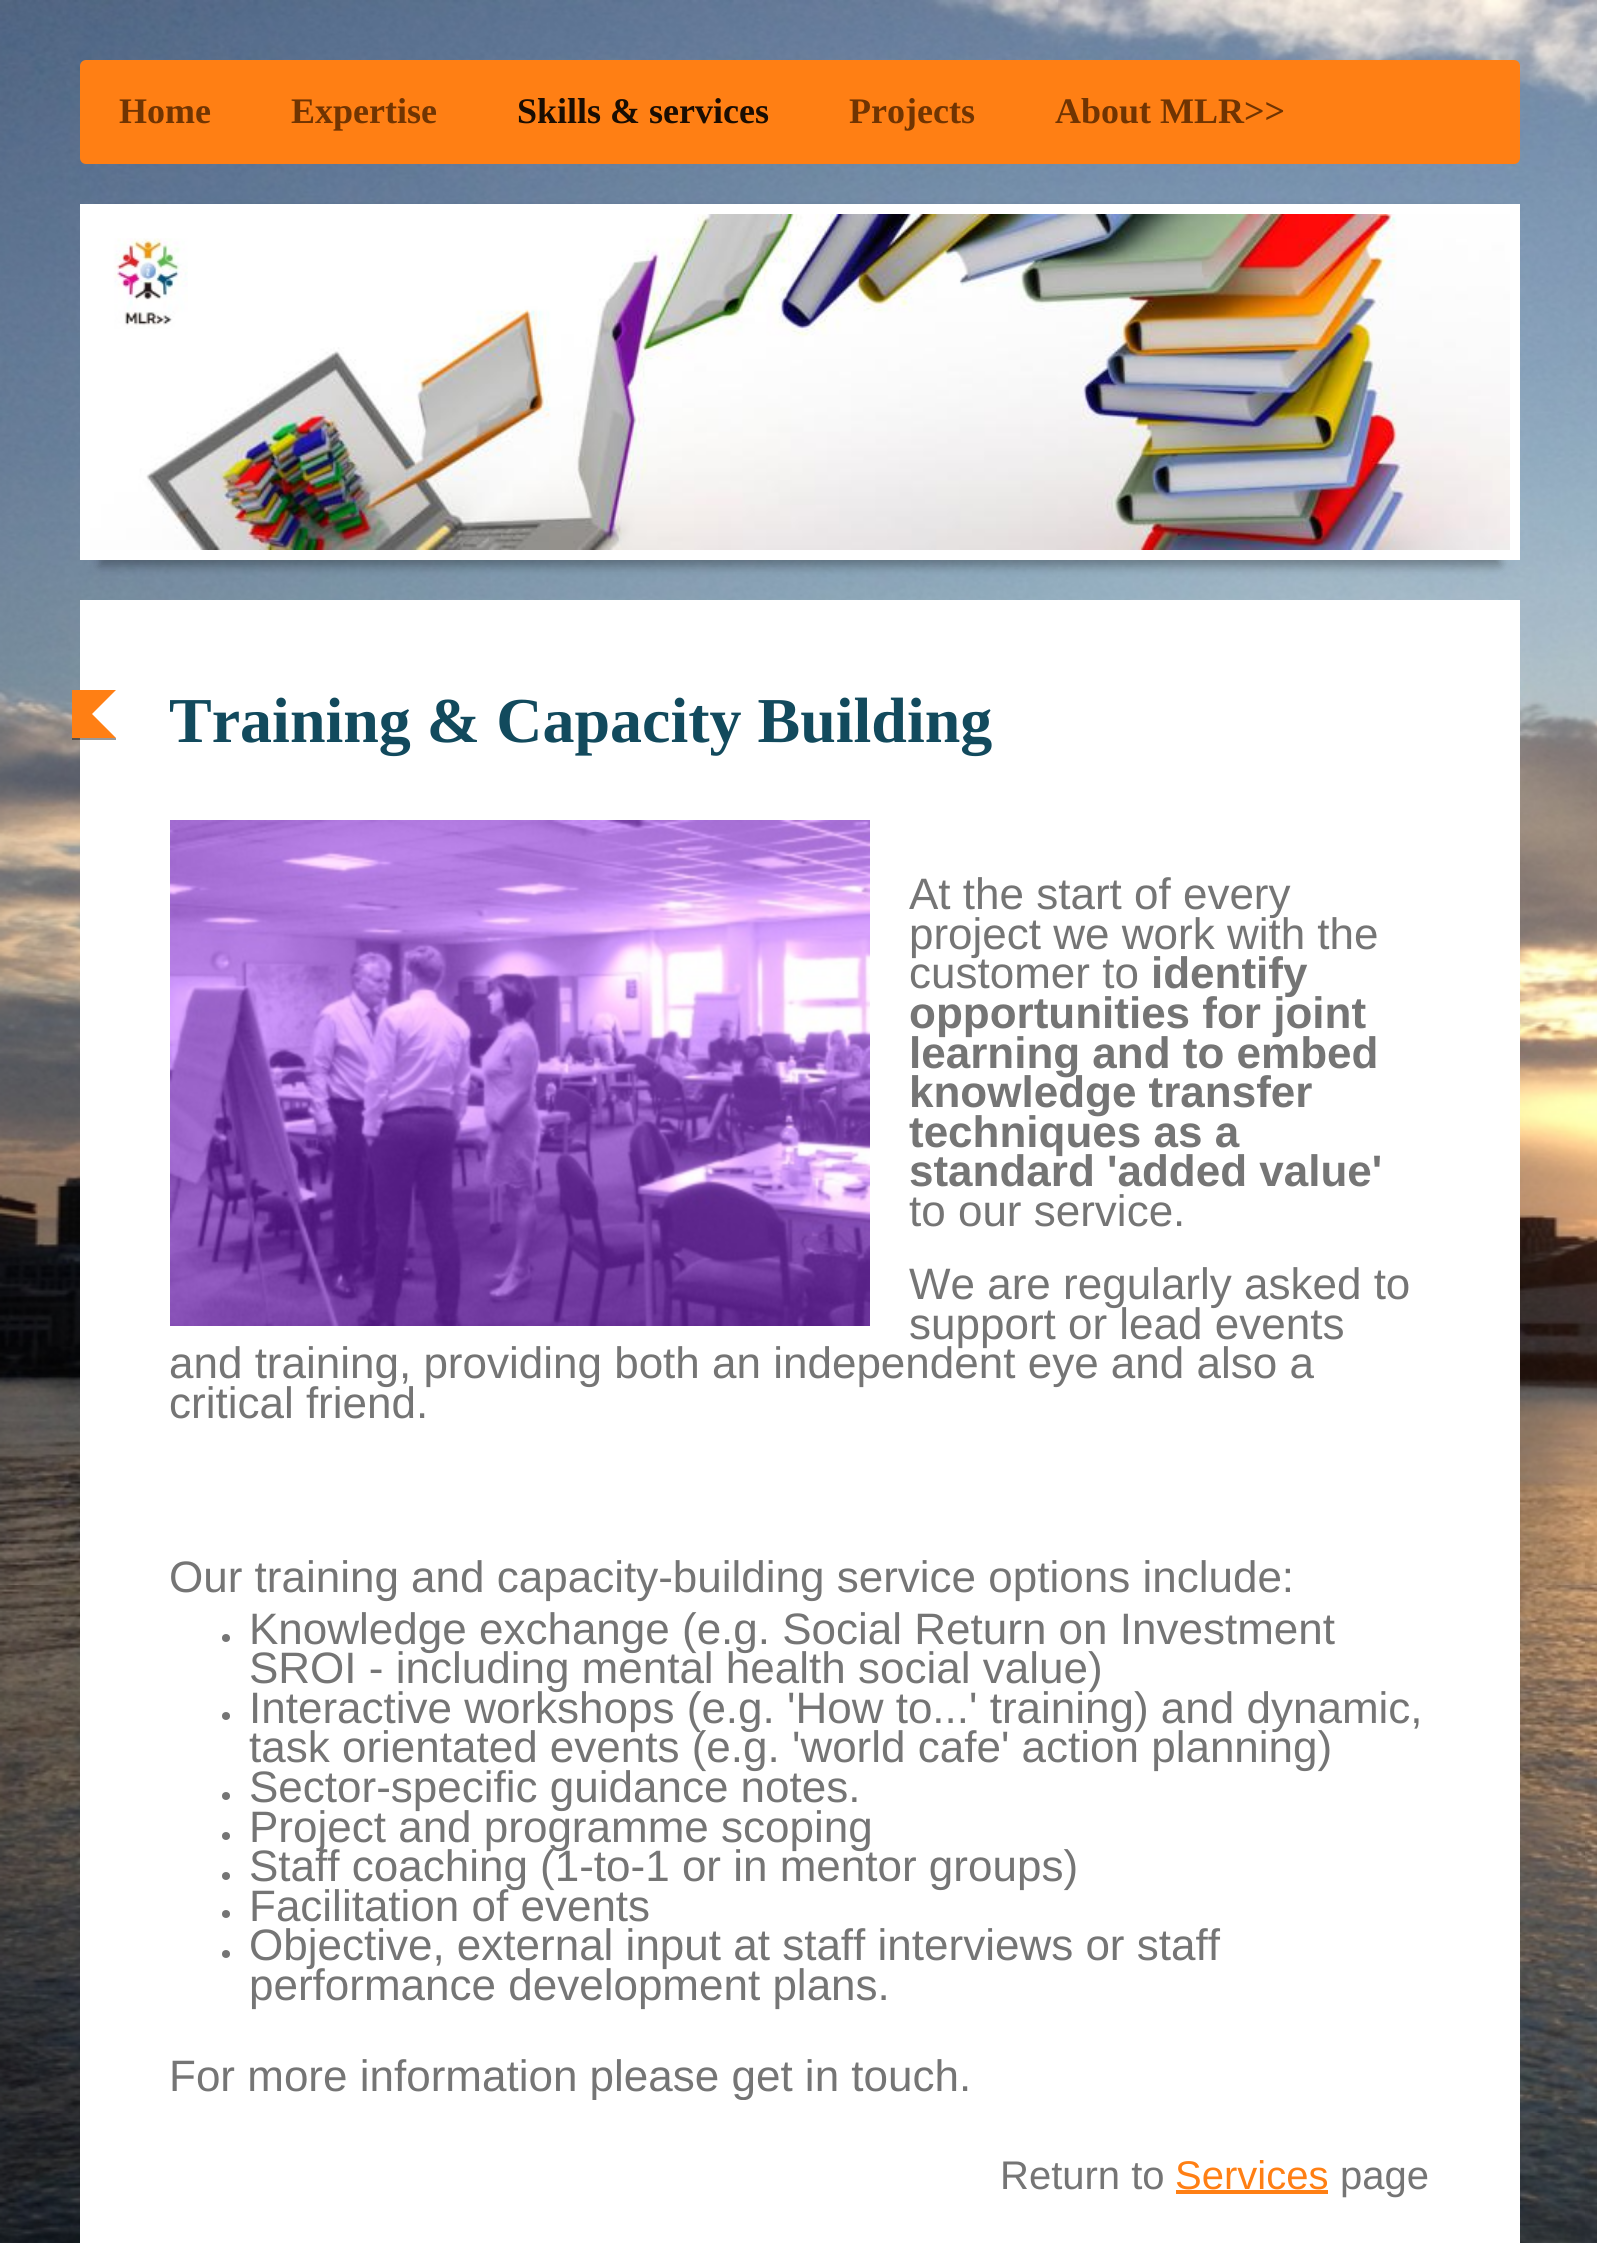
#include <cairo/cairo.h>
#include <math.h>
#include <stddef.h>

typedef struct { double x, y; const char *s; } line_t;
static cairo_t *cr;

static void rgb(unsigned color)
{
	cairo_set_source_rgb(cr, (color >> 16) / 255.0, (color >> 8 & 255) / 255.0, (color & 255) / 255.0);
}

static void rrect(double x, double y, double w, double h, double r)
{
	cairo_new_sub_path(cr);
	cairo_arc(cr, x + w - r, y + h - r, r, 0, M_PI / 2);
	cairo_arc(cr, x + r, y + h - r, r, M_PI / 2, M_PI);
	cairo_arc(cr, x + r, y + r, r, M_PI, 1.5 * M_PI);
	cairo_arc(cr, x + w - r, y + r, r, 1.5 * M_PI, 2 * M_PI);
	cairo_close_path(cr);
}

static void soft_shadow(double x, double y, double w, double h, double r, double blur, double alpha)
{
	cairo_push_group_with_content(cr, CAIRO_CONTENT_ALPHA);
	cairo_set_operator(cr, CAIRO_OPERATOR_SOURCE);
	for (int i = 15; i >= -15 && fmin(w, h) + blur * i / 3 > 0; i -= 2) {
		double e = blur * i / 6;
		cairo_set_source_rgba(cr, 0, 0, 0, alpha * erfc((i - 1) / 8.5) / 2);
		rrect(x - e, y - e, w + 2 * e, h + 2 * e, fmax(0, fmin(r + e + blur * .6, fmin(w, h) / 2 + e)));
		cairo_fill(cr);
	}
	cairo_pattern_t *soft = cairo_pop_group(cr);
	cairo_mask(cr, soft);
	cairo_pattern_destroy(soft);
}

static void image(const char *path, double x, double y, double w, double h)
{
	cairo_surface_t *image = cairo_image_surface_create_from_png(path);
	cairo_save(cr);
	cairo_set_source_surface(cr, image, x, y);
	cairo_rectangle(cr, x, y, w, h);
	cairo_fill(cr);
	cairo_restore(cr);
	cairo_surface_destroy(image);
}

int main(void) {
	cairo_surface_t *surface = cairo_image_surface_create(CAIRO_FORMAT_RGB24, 1597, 2243);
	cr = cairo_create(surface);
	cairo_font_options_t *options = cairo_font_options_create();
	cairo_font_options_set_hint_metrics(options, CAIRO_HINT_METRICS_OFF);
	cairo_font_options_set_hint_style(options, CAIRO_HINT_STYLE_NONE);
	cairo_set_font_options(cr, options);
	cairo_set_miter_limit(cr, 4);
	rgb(0xffffff);
	cairo_paint(cr);
	image("img/1.png", 0, 0, 1597, 2243);
	rgb(0xff7f14);
	rrect(80, 60, 1440, 104, 6);
	cairo_fill(cr);
	rgb(0x000000);
	soft_shadow(100, 210, 1400, 356, 0, 5, 0.3);
	cairo_rectangle(cr, 85, 209, 1430, 346);
	rgb(0xffffff);
	cairo_set_line_width(cr, 10);
	cairo_stroke(cr);
	image("img/2.png", 90, 214, 1420, 336);
	image("img/3.png", 113, 238, 75, 91);
	cairo_rectangle(cr, 80, 600, 1440, 1643);
	cairo_fill(cr);
	cairo_set_source_rgba(cr, 0, 0, 0, 0.4);
	cairo_rectangle(cr, 72, 738, 44, 2);
	cairo_fill(cr);
	rgb(0xff7f14);
	cairo_new_path(cr);
	cairo_move_to(cr, 72, 690);
	cairo_line_to(cr, 116, 690);
	cairo_line_to(cr, 92, 714);
	cairo_close_path(cr);
	cairo_move_to(cr, 116, 738);
	cairo_line_to(cr, 72, 738);
	cairo_line_to(cr, 92, 714);
	cairo_close_path(cr);
	cairo_fill(cr);
	cairo_rectangle(cr, 72, 690, 20, 48);
	cairo_fill(cr);
	image("img/4.png", 170, 820, 700, 506);
	rgb(0x757575);
	cairo_arc(cr, 226, 1638, 4, 0, 2 * M_PI);
	cairo_fill(cr);
	cairo_arc(cr, 226, 1716, 4, 0, 2 * M_PI);
	cairo_fill(cr);
	cairo_arc(cr, 226, 1796, 4, 0, 2 * M_PI);
	cairo_fill(cr);
	cairo_arc(cr, 226, 1836, 4, 0, 2 * M_PI);
	cairo_fill(cr);
	cairo_arc(cr, 226, 1876, 4, 0, 2 * M_PI);
	cairo_fill(cr);
	cairo_arc(cr, 226, 1914, 4, 0, 2 * M_PI);
	cairo_fill(cr);
	cairo_arc(cr, 226, 1954, 4, 0, 2 * M_PI);
	cairo_fill(cr);
	rgb(0xff7f14);
	cairo_rectangle(cr, 1176, 2190, 152, 4);
	cairo_fill(cr);
	cairo_select_font_face(cr, "Liberation Serif", CAIRO_FONT_SLANT_NORMAL, CAIRO_FONT_WEIGHT_BOLD);
	cairo_set_font_size(cr, 36);
	rgb(0x703402);
	cairo_move_to(cr, 119, 123);
	cairo_show_text(cr, "Home");
	cairo_move_to(cr, 291, 123);
	cairo_show_text(cr, "Expertise");
	rgb(0x1a0d02);
	cairo_move_to(cr, 517, 123);
	cairo_show_text(cr, "Skills & services");
	rgb(0x703402);
	cairo_move_to(cr, 849, 123);
	cairo_show_text(cr, "Projects");
	cairo_move_to(cr, 1055, 123);
	cairo_show_text(cr, "About MLR>>");
	cairo_set_font_size(cr, 64);
	rgb(0x124a5d);
	cairo_move_to(cr, 169, 742);
	cairo_show_text(cr, "Training & Capacity Building");
	cairo_select_font_face(cr, "Liberation Sans", CAIRO_FONT_SLANT_NORMAL, CAIRO_FONT_WEIGHT_NORMAL);
	cairo_set_font_size(cr, 44);
	rgb(0x757575);
	{
		static const line_t items[] = {
			{909, 909, "At the start of every"},
			{909, 949, "project we work with the"},
			{909, 988, "customer to"},
		};
		for (size_t i = 0; i < sizeof items / sizeof *items; i++) {
			cairo_move_to(cr, items[i].x, items[i].y);
			cairo_show_text(cr, items[i].s);
		}
	}
	cairo_select_font_face(cr, "Liberation Sans", CAIRO_FONT_SLANT_NORMAL, CAIRO_FONT_WEIGHT_BOLD);
	{
		static const line_t items[] = {
			{1151, 988, "identify"},
			{909, 1028, "opportunities for joint"},
			{909, 1068, "learning and to embed"},
			{909, 1107, "knowledge transfer"},
			{909, 1147, "techniques as a"},
			{909, 1186, "standard 'added value'"},
		};
		for (size_t i = 0; i < sizeof items / sizeof *items; i++) {
			cairo_move_to(cr, items[i].x, items[i].y);
			cairo_show_text(cr, items[i].s);
		}
	}
	cairo_select_font_face(cr, "Liberation Sans", CAIRO_FONT_SLANT_NORMAL, CAIRO_FONT_WEIGHT_NORMAL);
	{
		static const line_t items[] = {
			{909, 1226, "to our service."},
			{909, 1299, "We are regularly asked to"},
			{909, 1339, "support or lead events"},
			{169, 1378, "and training, providing both an independent eye and also a"},
			{169, 1418, "critical friend."},
			{169, 1592, "Our training and capacity-building service options include:"},
			{249, 1644, "Knowledge exchange (e.g. Social Return on Investment"},
			{249, 1683, "SROI - including mental health social value)"},
			{249, 1723, "Interactive workshops (e.g. 'How to...' training) and dynamic,"},
			{249, 1762, "task orientated events (e.g. 'world cafe' action planning)"},
			{249, 1802, "Sector-specific guidance notes."},
			{249, 1842, "Project and programme scoping"},
			{249, 1881, "Staff coaching (1-to-1 or in mentor groups)"},
			{249, 1921, "Facilitation of events"},
			{249, 1960, "Objective, external input at staff interviews or staff"},
			{249, 2000, "performance development plans."},
		};
		for (size_t i = 0; i < sizeof items / sizeof *items; i++) {
			cairo_move_to(cr, items[i].x, items[i].y);
			cairo_show_text(cr, items[i].s);
		}
	}
	cairo_save(cr);
	cairo_rectangle(cr, 170, 812, 1260, 1288);
	cairo_clip(cr);
	cairo_move_to(cr, 169, 2091);
	cairo_show_text(cr, "For more information please get in touch.");
	cairo_restore(cr);
	cairo_set_font_size(cr, 40);
	cairo_move_to(cr, 1000, 2189);
	cairo_show_text(cr, "Return to");
	rgb(0xff7f14);
	cairo_move_to(cr, 1175, 2189);
	cairo_show_text(cr, "Services");
	rgb(0x757575);
	cairo_move_to(cr, 1340, 2189);
	cairo_show_text(cr, "page");
	cairo_surface_write_to_png(surface, "page.png");
	cairo_font_options_destroy(options);
	cairo_destroy(cr);
	cairo_surface_destroy(surface);
	return 0;
}
